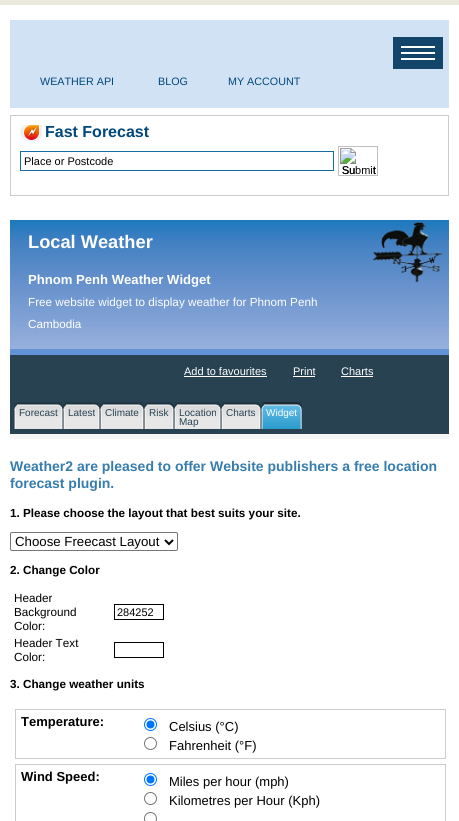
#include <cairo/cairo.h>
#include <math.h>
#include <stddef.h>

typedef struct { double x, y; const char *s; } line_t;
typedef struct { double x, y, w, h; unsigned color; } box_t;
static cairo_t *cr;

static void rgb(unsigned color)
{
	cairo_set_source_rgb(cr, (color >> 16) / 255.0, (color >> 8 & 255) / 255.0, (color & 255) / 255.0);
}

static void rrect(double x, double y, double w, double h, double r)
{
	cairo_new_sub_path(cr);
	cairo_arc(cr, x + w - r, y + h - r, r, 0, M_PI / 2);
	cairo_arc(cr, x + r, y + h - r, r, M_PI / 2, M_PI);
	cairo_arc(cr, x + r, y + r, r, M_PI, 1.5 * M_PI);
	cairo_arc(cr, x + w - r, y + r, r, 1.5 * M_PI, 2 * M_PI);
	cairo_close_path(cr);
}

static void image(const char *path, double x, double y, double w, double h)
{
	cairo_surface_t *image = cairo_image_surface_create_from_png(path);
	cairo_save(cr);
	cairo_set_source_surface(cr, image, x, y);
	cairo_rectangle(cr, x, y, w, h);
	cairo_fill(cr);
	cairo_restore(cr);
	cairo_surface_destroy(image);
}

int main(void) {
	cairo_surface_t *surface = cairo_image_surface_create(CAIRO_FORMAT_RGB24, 459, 821);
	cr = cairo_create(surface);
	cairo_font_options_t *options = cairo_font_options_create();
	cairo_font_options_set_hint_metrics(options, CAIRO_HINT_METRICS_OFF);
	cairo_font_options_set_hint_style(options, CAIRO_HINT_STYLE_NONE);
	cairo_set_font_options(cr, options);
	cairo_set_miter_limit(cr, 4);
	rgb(0xebe9dc);
	cairo_paint(cr);
	{
		static const box_t items[] = {
			{0, 5, 459, 816, 0xffffff},
			{10, 20, 439, 88, 0xd1e2f4},
			{393, 37, 50, 32, 0x124569},
			{401, 46, 34, 2, 0xffffff},
			{401, 52, 34, 2, 0xffffff},
			{401, 58, 34, 2, 0xffffff},
		};
		for (size_t i = 0; i < sizeof items / sizeof *items; i++) {
			rgb(items[i].color);
			cairo_rectangle(cr, items[i].x, items[i].y, items[i].w, items[i].h);
			cairo_fill(cr);
		}
	}
	cairo_rectangle(cr, 10.5, 115.5, 438, 80);
	rgb(0xcccccc);
	cairo_set_line_width(cr, 1);
	cairo_stroke(cr);
	image("img/1.png", 20, 125, 22, 16);
	cairo_rectangle(cr, 20.5, 151.5, 313, 19);
	rgb(0x186ba2);
	cairo_stroke(cr);
	image("img/2.png", 338, 146, 40, 30);
	rgb(0x284252);
	cairo_rectangle(cr, 10, 355, 439, 79);
	cairo_fill(cr);
	rgb(0x6293d6);
	cairo_rectangle(cr, 10, 349, 439, 6);
	cairo_fill(cr);
	image("img/3.png", 10, 220, 439, 129);
	{
		static const box_t items[] = {
			{184, 376, 83, 1, 0xffffff},
			{293, 376, 22, 1, 0xffffff},
			{341, 376, 32, 1, 0xffffff},
		};
		for (size_t i = 0; i < sizeof items / sizeof *items; i++) {
			rgb(items[i].color);
			cairo_rectangle(cr, items[i].x, items[i].y, items[i].w, items[i].h);
			cairo_fill(cr);
		}
	}
	image("img/4.png", 14, 402, 3, 27);
	image("img/5.png", 17, 402, 46, 27);
	image("img/4.png", 63, 402, 3, 27);
	image("img/6.png", 66, 402, 34, 27);
	image("img/4.png", 100, 402, 3, 27);
	image("img/7.png", 103, 402, 41, 27);
	image("img/4.png", 144, 402, 3, 27);
	image("img/8.png", 147, 402, 27, 27);
	image("img/4.png", 174, 402, 3, 27);
	image("img/9.png", 177, 402, 44, 27);
	image("img/4.png", 221, 402, 3, 27);
	image("img/10.png", 224, 402, 37, 27);
	image("img/11.png", 261, 402, 3, 27);
	image("img/12.png", 264, 402, 38, 27);
	rgb(0xf6f6f6);
	cairo_rectangle(cr, 10, 434, 439, 5);
	cairo_fill(cr);
	rrect(10.5, 532.5, 167, 18, 1.5);
	rgb(0x767676);
	cairo_stroke(cr);
	cairo_new_path(cr);
	cairo_move_to(cr, 165, 540);
	cairo_line_to(cr, 169, 544);
	cairo_line_to(cr, 173, 540);
	rgb(0x000000);
	cairo_set_line_width(cr, 2);
	cairo_stroke(cr);
	cairo_rectangle(cr, 114.5, 604.5, 49, 15);
	cairo_set_line_width(cr, 1);
	cairo_stroke(cr);
	cairo_rectangle(cr, 114.5, 642.5, 49, 15);
	cairo_stroke(cr);
	cairo_rectangle(cr, 15.5, 709.5, 430, 49);
	rgb(0xcccccc);
	cairo_stroke(cr);
	cairo_arc(cr, 150.5, 724.5, 6, 0, 2 * M_PI);
	rgb(0x0075ff);
	cairo_stroke(cr);
	cairo_arc(cr, 150.5, 724.5, 4, 0, 2 * M_PI);
	cairo_fill(cr);
	cairo_arc(cr, 150.5, 743.5, 6, 0, 2 * M_PI);
	rgb(0x767676);
	cairo_stroke(cr);
	cairo_rectangle(cr, 15.5, 764.5, 430, 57);
	rgb(0xcccccc);
	cairo_stroke(cr);
	cairo_arc(cr, 150.5, 779.5, 6, 0, 2 * M_PI);
	rgb(0x0075ff);
	cairo_stroke(cr);
	cairo_arc(cr, 150.5, 779.5, 4, 0, 2 * M_PI);
	cairo_fill(cr);
	cairo_arc(cr, 150.5, 798.5, 6, 0, 2 * M_PI);
	rgb(0x767676);
	cairo_stroke(cr);
	cairo_arc(cr, 150.5, 818.5, 6, 0, 2 * M_PI);
	cairo_stroke(cr);
	cairo_select_font_face(cr, "Liberation Sans", CAIRO_FONT_SLANT_NORMAL, CAIRO_FONT_WEIGHT_NORMAL);
	cairo_set_font_size(cr, 10.75);
	rgb(0x00487d);
	{
		static const line_t items[] = {
			{40, 85, "WEATHER API"},
			{158, 85, "BLOG"},
			{228, 85, "MY ACCOUNT"},
		};
		for (size_t i = 0; i < sizeof items / sizeof *items; i++) {
			cairo_move_to(cr, items[i].x, items[i].y);
			cairo_show_text(cr, items[i].s);
		}
	}
	cairo_select_font_face(cr, "Liberation Sans", CAIRO_FONT_SLANT_NORMAL, CAIRO_FONT_WEIGHT_BOLD);
	cairo_set_font_size(cr, 16);
	cairo_move_to(cr, 45, 137);
	cairo_show_text(cr, "Fast Forecast");
	cairo_select_font_face(cr, "Liberation Sans", CAIRO_FONT_SLANT_NORMAL, CAIRO_FONT_WEIGHT_NORMAL);
	cairo_set_font_size(cr, 11);
	rgb(0x000000);
	{
		static const line_t items[] = {
			{24, 165, "Place or Postcode"},
			{342, 174, "Su"},
			{373, 174, "t"},
		};
		for (size_t i = 0; i < sizeof items / sizeof *items; i++) {
			cairo_move_to(cr, items[i].x, items[i].y);
			cairo_show_text(cr, items[i].s);
		}
	}
	cairo_select_font_face(cr, "Liberation Sans", CAIRO_FONT_SLANT_NORMAL, CAIRO_FONT_WEIGHT_BOLD);
	cairo_set_font_size(cr, 18.25);
	rgb(0xffffff);
	cairo_move_to(cr, 28, 248);
	cairo_show_text(cr, "Local Weather");
	cairo_set_font_size(cr, 13.1);
	cairo_move_to(cr, 28, 284);
	cairo_show_text(cr, "Phnom Penh Weather Widget");
	cairo_select_font_face(cr, "Liberation Sans", CAIRO_FONT_SLANT_NORMAL, CAIRO_FONT_WEIGHT_NORMAL);
	cairo_set_font_size(cr, 11.7);
	cairo_move_to(cr, 28, 306);
	cairo_show_text(cr, "Free website widget to display weather for Phnom Penh");
	cairo_move_to(cr, 28, 328);
	cairo_show_text(cr, "Cambodia");
	cairo_set_font_size(cr, 11);
	{
		static const line_t items[] = {
			{184, 375, "Add to favourites"},
			{293, 375, "Print"},
			{341, 375, "Charts"},
		};
		for (size_t i = 0; i < sizeof items / sizeof *items; i++) {
			cairo_move_to(cr, items[i].x, items[i].y);
			cairo_show_text(cr, items[i].s);
		}
	}
	cairo_set_font_size(cr, 10);
	rgb(0x284252);
	{
		static const line_t items[] = {
			{19, 416, "Forecast"},
			{68, 416, "Latest"},
			{105, 416, "Climate"},
			{149, 416, "Risk"},
			{179, 416, "Location"},
			{179, 425, "Map"},
			{226, 416, "Charts"},
		};
		for (size_t i = 0; i < sizeof items / sizeof *items; i++) {
			cairo_move_to(cr, items[i].x, items[i].y);
			cairo_show_text(cr, items[i].s);
		}
	}
	rgb(0xffffff);
	cairo_move_to(cr, 266, 416);
	cairo_show_text(cr, "Widget");
	cairo_select_font_face(cr, "Liberation Sans", CAIRO_FONT_SLANT_NORMAL, CAIRO_FONT_WEIGHT_BOLD);
	cairo_set_font_size(cr, 14);
	rgb(0x367dad);
	cairo_move_to(cr, 10, 471);
	cairo_show_text(cr, "Weather2 are pleased to offer Website publishers a free location");
	cairo_move_to(cr, 10, 488);
	cairo_show_text(cr, "forecast plugin.");
	cairo_set_font_size(cr, 11.7);
	rgb(0x000000);
	cairo_move_to(cr, 10, 517);
	cairo_show_text(cr, "1. Please choose the layout that best suits your site.");
	cairo_select_font_face(cr, "Liberation Sans", CAIRO_FONT_SLANT_NORMAL, CAIRO_FONT_WEIGHT_NORMAL);
	cairo_set_font_size(cr, 13.25);
	cairo_move_to(cr, 15, 546);
	cairo_show_text(cr, "Choose Freecast Layout");
	cairo_select_font_face(cr, "Liberation Sans", CAIRO_FONT_SLANT_NORMAL, CAIRO_FONT_WEIGHT_BOLD);
	cairo_set_font_size(cr, 11.7);
	cairo_move_to(cr, 10, 574);
	cairo_show_text(cr, "2. Change Color");
	cairo_select_font_face(cr, "Liberation Sans", CAIRO_FONT_SLANT_NORMAL, CAIRO_FONT_WEIGHT_NORMAL);
	{
		static const line_t items[] = {
			{14, 602, "Header"},
			{14, 616, "Background"},
			{14, 630, "Color:"},
		};
		for (size_t i = 0; i < sizeof items / sizeof *items; i++) {
			cairo_move_to(cr, items[i].x, items[i].y);
			cairo_show_text(cr, items[i].s);
		}
	}
	cairo_set_font_size(cr, 11);
	cairo_move_to(cr, 117, 616);
	cairo_show_text(cr, "284252");
	cairo_set_font_size(cr, 11.7);
	cairo_move_to(cr, 14, 647);
	cairo_show_text(cr, "Header Text");
	cairo_move_to(cr, 14, 661);
	cairo_show_text(cr, "Color:");
	cairo_select_font_face(cr, "Liberation Sans", CAIRO_FONT_SLANT_NORMAL, CAIRO_FONT_WEIGHT_BOLD);
	cairo_move_to(cr, 10, 688);
	cairo_show_text(cr, "3. Change weather units");
	cairo_set_font_size(cr, 13);
	cairo_move_to(cr, 21, 726);
	cairo_show_text(cr, "Temperature:");
	cairo_select_font_face(cr, "Liberation Sans", CAIRO_FONT_SLANT_NORMAL, CAIRO_FONT_WEIGHT_NORMAL);
	cairo_move_to(cr, 169, 731);
	cairo_show_text(cr, "Celsius (°C)");
	cairo_move_to(cr, 169, 750);
	cairo_show_text(cr, "Fahrenheit (°F)");
	cairo_select_font_face(cr, "Liberation Sans", CAIRO_FONT_SLANT_NORMAL, CAIRO_FONT_WEIGHT_BOLD);
	cairo_move_to(cr, 21, 781);
	cairo_show_text(cr, "Wind Speed:");
	cairo_select_font_face(cr, "Liberation Sans", CAIRO_FONT_SLANT_NORMAL, CAIRO_FONT_WEIGHT_NORMAL);
	cairo_move_to(cr, 169, 786);
	cairo_show_text(cr, "Miles per hour (mph)");
	cairo_move_to(cr, 169, 805);
	cairo_show_text(cr, "Kilometres per Hour (Kph)");
	cairo_surface_write_to_png(surface, "page.png");
	cairo_font_options_destroy(options);
	cairo_destroy(cr);
	cairo_surface_destroy(surface);
	return 0;
}
